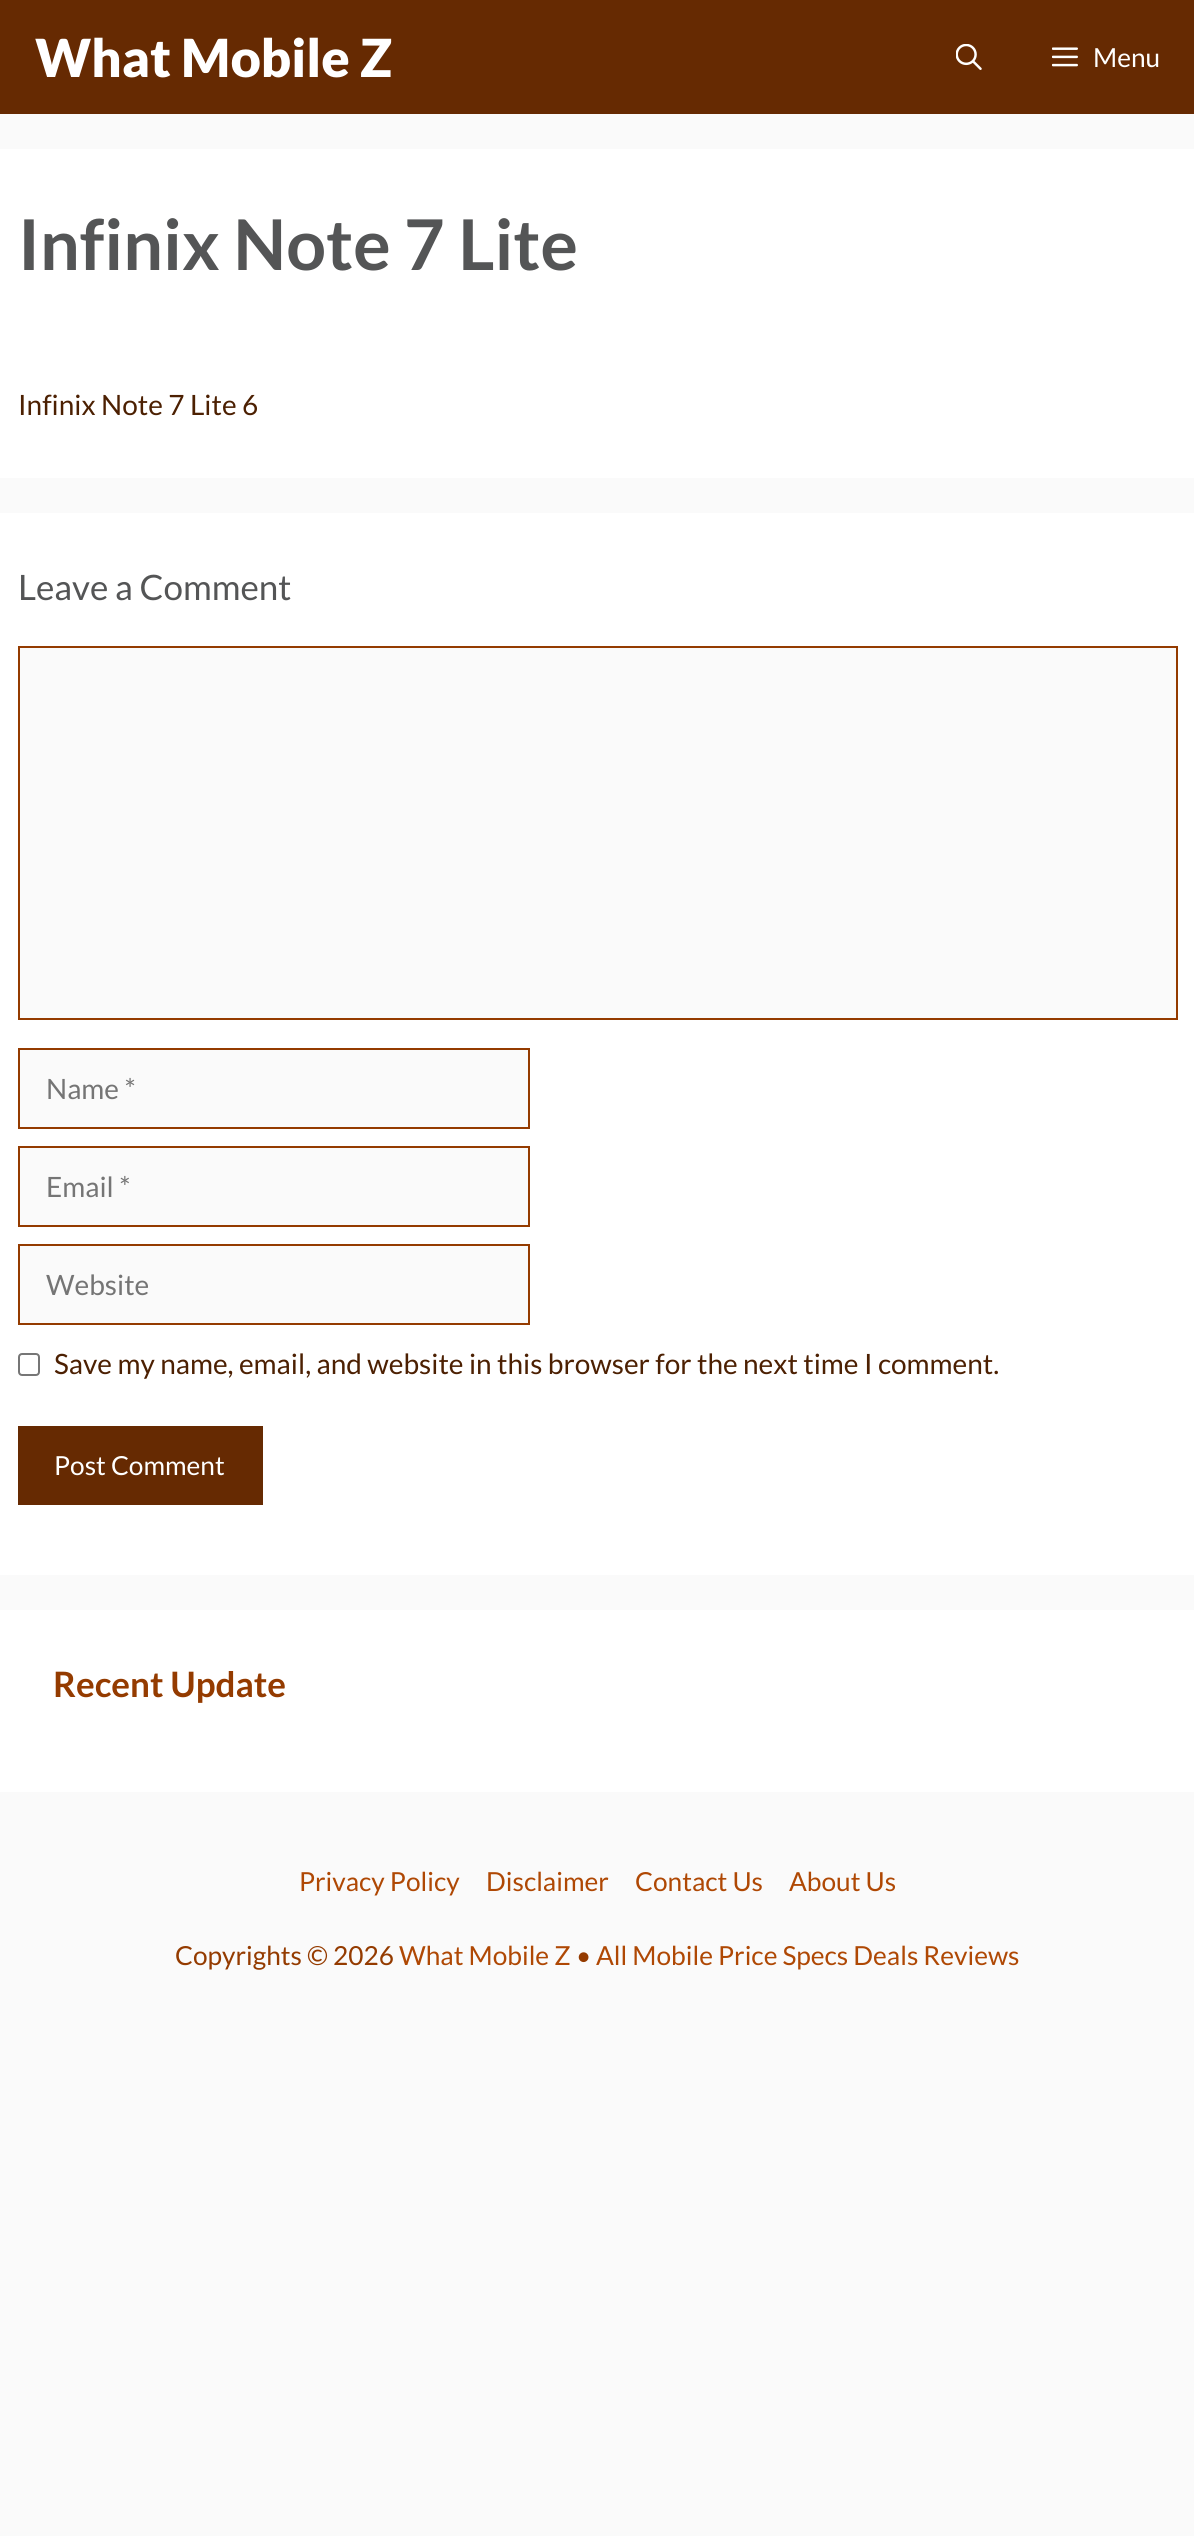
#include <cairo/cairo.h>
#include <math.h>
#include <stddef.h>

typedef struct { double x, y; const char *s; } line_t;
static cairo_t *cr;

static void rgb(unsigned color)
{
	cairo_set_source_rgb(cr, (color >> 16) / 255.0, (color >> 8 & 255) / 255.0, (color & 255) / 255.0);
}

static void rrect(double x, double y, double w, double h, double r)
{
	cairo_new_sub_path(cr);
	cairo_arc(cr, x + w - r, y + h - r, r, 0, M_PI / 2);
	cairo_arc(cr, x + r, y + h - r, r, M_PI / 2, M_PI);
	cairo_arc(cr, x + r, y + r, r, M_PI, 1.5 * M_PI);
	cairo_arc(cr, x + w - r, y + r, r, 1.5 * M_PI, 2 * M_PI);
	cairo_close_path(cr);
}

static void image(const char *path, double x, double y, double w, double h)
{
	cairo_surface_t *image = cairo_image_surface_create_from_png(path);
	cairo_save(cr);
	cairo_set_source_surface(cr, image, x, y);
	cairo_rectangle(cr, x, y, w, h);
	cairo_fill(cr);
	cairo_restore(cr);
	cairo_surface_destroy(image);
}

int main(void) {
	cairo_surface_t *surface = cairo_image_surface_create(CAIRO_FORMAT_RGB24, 1194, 2536);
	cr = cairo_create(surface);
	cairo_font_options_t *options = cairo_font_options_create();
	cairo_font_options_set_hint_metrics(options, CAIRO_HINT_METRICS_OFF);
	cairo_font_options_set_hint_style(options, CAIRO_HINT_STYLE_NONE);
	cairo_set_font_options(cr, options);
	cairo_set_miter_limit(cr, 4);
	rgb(0xfafafa);
	cairo_paint(cr);
	rgb(0x662a02);
	cairo_rectangle(cr, 0, 0, 1194, 114);
	cairo_fill(cr);
	image("img/1.png", 956, 44, 26, 26);
	image("img/2.png", 1052, 47, 26, 20);
	rgb(0xffffff);
	cairo_rectangle(cr, 0, 149, 1194, 329);
	cairo_fill(cr);
	cairo_rectangle(cr, 0, 513, 1194, 1062);
	cairo_fill(cr);
	rgb(0xfafafa);
	cairo_rectangle(cr, 19, 647, 1158, 372);
	cairo_fill_preserve(cr);
	rgb(0x943b00);
	cairo_stroke(cr);
	rgb(0xfafafa);
	cairo_rectangle(cr, 19, 1049, 510, 79);
	cairo_fill_preserve(cr);
	rgb(0x943b00);
	cairo_stroke(cr);
	rgb(0xfafafa);
	cairo_rectangle(cr, 19, 1147, 510, 79);
	cairo_fill_preserve(cr);
	rgb(0x943b00);
	cairo_stroke(cr);
	rgb(0xfafafa);
	cairo_rectangle(cr, 19, 1245, 510, 79);
	cairo_fill_preserve(cr);
	rgb(0x943b00);
	cairo_stroke(cr);
	rrect(19, 1354, 20, 21, 3);
	rgb(0x767676);
	cairo_stroke(cr);
	rgb(0x662a02);
	cairo_rectangle(cr, 18, 1426, 245, 79);
	cairo_fill(cr);
	rgb(0xffffff);
	cairo_rectangle(cr, 0, 1610, 1194, 182);
	cairo_fill(cr);
	cairo_select_font_face(cr, "Lato Black", CAIRO_FONT_SLANT_NORMAL, CAIRO_FONT_WEIGHT_NORMAL);
	cairo_set_font_size(cr, 52.5);
	cairo_move_to(cr, 35, 77);
	cairo_show_text(cr, "What Mobile Z");
	cairo_select_font_face(cr, "Lato", CAIRO_FONT_SLANT_NORMAL, CAIRO_FONT_WEIGHT_NORMAL);
	cairo_set_font_size(cr, 26.25);
	cairo_move_to(cr, 1093, 67);
	cairo_show_text(cr, "Menu");
	cairo_select_font_face(cr, "Lato", CAIRO_FONT_SLANT_NORMAL, CAIRO_FONT_WEIGHT_BOLD);
	cairo_set_font_size(cr, 70);
	rgb(0x545556);
	cairo_move_to(cr, 18, 270);
	cairo_show_text(cr, "Infinix Note 7 Lite");
	cairo_select_font_face(cr, "Lato", CAIRO_FONT_SLANT_NORMAL, CAIRO_FONT_WEIGHT_NORMAL);
	cairo_set_font_size(cr, 28);
	rgb(0x4c2002);
	cairo_move_to(cr, 18, 415);
	cairo_show_text(cr, "Infinix Note 7 Lite 6");
	cairo_set_font_size(cr, 35);
	rgb(0x545556);
	cairo_move_to(cr, 18, 600);
	cairo_show_text(cr, "Leave a Comment");
	cairo_set_font_size(cr, 28);
	rgb(0x757575);
	{
		static const line_t items[] = {
			{46, 1099, "Name *"},
			{46, 1197, "Email *"},
			{46, 1295, "Website"},
		};
		for (size_t i = 0; i < sizeof items / sizeof *items; i++) {
			cairo_move_to(cr, items[i].x, items[i].y);
			cairo_show_text(cr, items[i].s);
		}
	}
	rgb(0x4c2002);
	cairo_move_to(cr, 54, 1374);
	cairo_show_text(cr, "Save my name, email, and website in this browser for the next time I comment.");
	cairo_set_font_size(cr, 26.25);
	rgb(0xffffff);
	cairo_move_to(cr, 54, 1475);
	cairo_show_text(cr, "Post Comment");
	cairo_select_font_face(cr, "Lato", CAIRO_FONT_SLANT_NORMAL, CAIRO_FONT_WEIGHT_BOLD);
	cairo_set_font_size(cr, 35);
	rgb(0x943b00);
	cairo_move_to(cr, 53, 1697);
	cairo_show_text(cr, "Recent Update");
	cairo_select_font_face(cr, "Lato", CAIRO_FONT_SLANT_NORMAL, CAIRO_FONT_WEIGHT_NORMAL);
	cairo_set_font_size(cr, 26.25);
	rgb(0xaf4804);
	{
		static const line_t items[] = {
			{299, 1891, "Privacy Policy"},
			{486, 1891, "Disclaimer"},
			{635, 1891, "Contact Us"},
			{789, 1891, "About Us"},
		};
		for (size_t i = 0; i < sizeof items / sizeof *items; i++) {
			cairo_move_to(cr, items[i].x, items[i].y);
			cairo_show_text(cr, items[i].s);
		}
	}
	rgb(0x943b00);
	cairo_move_to(cr, 175, 1965);
	cairo_show_text(cr, "Copyrights © 2026");
	rgb(0xaf4804);
	cairo_move_to(cr, 399, 1965);
	cairo_show_text(cr, "What Mobile Z");
	rgb(0x943b00);
	cairo_move_to(cr, 576, 1965);
	cairo_show_text(cr, "•");
	rgb(0xaf4804);
	cairo_move_to(cr, 596, 1965);
	cairo_show_text(cr, "All Mobile Price Specs Deals Reviews");
	cairo_surface_write_to_png(surface, "page.png");
	cairo_font_options_destroy(options);
	cairo_destroy(cr);
	cairo_surface_destroy(surface);
	return 0;
}
